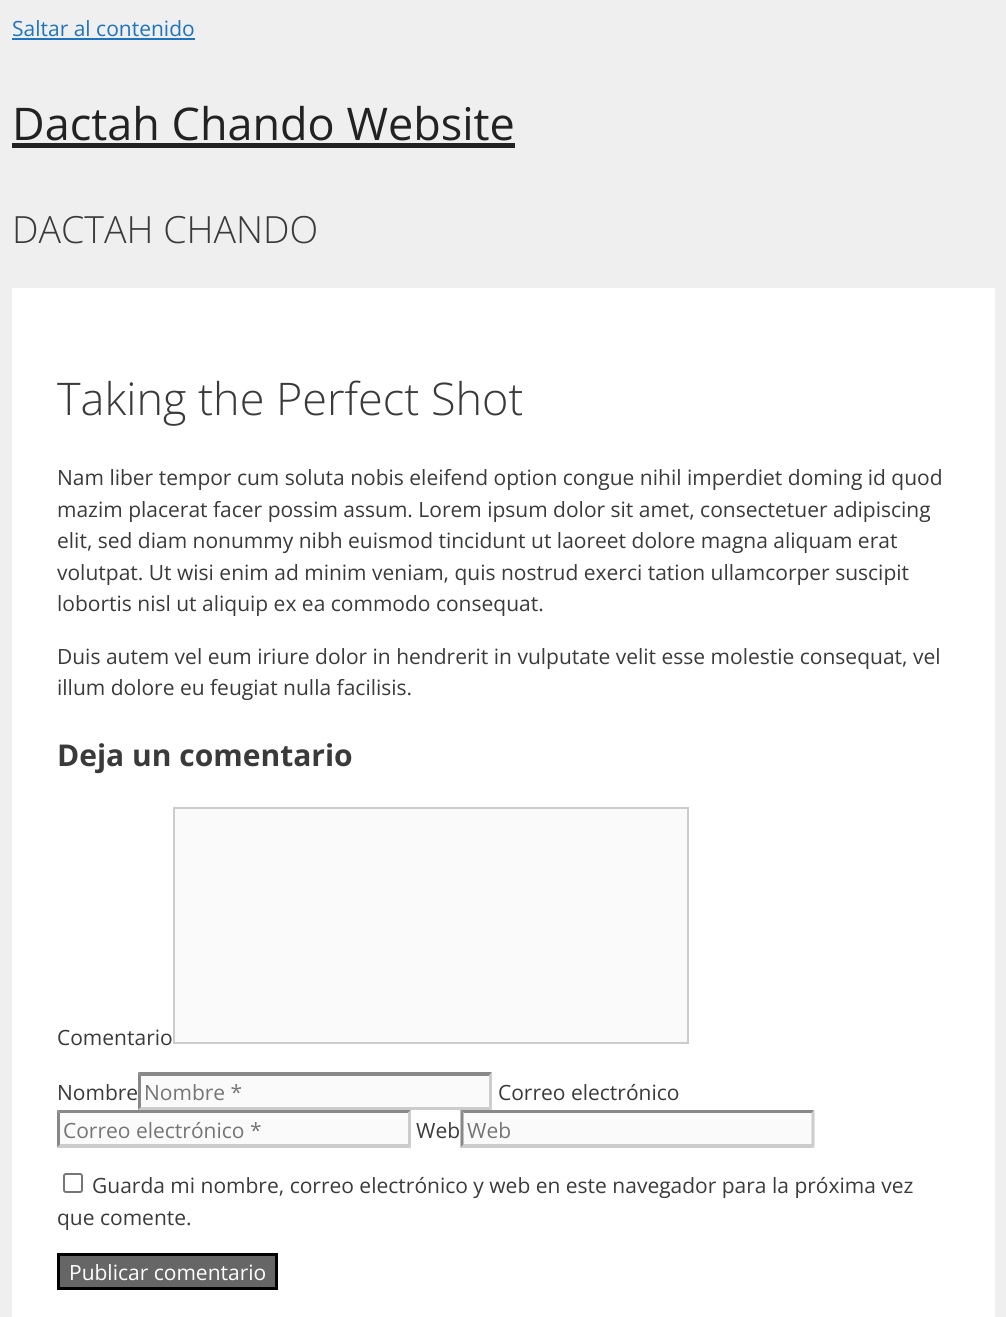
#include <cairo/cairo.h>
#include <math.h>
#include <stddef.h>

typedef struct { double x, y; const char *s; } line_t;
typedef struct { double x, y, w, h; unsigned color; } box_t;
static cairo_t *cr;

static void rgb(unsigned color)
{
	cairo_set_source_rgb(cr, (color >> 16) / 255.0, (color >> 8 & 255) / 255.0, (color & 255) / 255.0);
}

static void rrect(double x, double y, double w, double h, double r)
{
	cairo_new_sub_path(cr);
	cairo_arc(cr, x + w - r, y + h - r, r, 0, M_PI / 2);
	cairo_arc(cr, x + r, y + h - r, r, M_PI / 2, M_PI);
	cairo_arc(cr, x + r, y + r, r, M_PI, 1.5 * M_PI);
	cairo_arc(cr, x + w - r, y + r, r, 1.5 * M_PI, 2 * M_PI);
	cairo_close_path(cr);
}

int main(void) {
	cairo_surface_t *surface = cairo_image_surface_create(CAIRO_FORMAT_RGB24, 1006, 1317);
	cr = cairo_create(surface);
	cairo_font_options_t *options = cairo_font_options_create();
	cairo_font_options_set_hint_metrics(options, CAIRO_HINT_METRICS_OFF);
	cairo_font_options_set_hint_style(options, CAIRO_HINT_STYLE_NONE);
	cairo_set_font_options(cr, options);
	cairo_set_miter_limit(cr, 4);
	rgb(0xefefef);
	cairo_paint(cr);
	{
		static const box_t items[] = {
			{12, 38, 183, 2, 0x1e73be},
			{12, 143, 503, 5, 0x222222},
			{12, 288, 983, 1029, 0xffffff},
		};
		for (size_t i = 0; i < sizeof items / sizeof *items; i++) {
			rgb(items[i].color);
			cairo_rectangle(cr, items[i].x, items[i].y, items[i].w, items[i].h);
			cairo_fill(cr);
		}
	}
	rgb(0xfafafa);
	cairo_rectangle(cr, 174, 808, 514, 235);
	cairo_fill_preserve(cr);
	rgb(0xcccccc);
	cairo_stroke(cr);
	rgb(0xfafafa);
	cairo_rectangle(cr, 138, 1073, 354, 37);
	cairo_fill(cr);
	rgb(0x888888);
	cairo_new_path(cr);
	cairo_move_to(cr, 138, 1072);
	cairo_line_to(cr, 492, 1072);
	cairo_line_to(cr, 489, 1076);
	cairo_line_to(cr, 141, 1076);
	cairo_close_path(cr);
	cairo_fill(cr);
	rgb(0xcccccc);
	cairo_new_path(cr);
	cairo_move_to(cr, 492, 1072.5);
	cairo_line_to(cr, 492, 1110);
	cairo_line_to(cr, 489, 1107);
	cairo_line_to(cr, 489, 1075.5);
	cairo_close_path(cr);
	cairo_fill(cr);
	cairo_new_path(cr);
	cairo_move_to(cr, 492, 1110);
	cairo_line_to(cr, 138, 1110);
	cairo_line_to(cr, 141, 1107);
	cairo_line_to(cr, 489, 1107);
	cairo_close_path(cr);
	cairo_fill(cr);
	rgb(0x888888);
	cairo_new_path(cr);
	cairo_move_to(cr, 138, 1110);
	cairo_line_to(cr, 138, 1072.5);
	cairo_line_to(cr, 141, 1075.5);
	cairo_line_to(cr, 141, 1107);
	cairo_close_path(cr);
	cairo_fill(cr);
	rgb(0xfafafa);
	cairo_rectangle(cr, 57, 1110, 354, 38);
	cairo_fill(cr);
	rgb(0x888888);
	cairo_new_path(cr);
	cairo_move_to(cr, 57, 1110);
	cairo_line_to(cr, 411, 1110);
	cairo_line_to(cr, 408, 1113);
	cairo_line_to(cr, 60, 1113);
	cairo_close_path(cr);
	cairo_fill(cr);
	rgb(0xcccccc);
	cairo_new_path(cr);
	cairo_move_to(cr, 411, 1110);
	cairo_line_to(cr, 411, 1147.5);
	cairo_line_to(cr, 408, 1144.5);
	cairo_line_to(cr, 408, 1113);
	cairo_close_path(cr);
	cairo_fill(cr);
	cairo_new_path(cr);
	cairo_move_to(cr, 411, 1148);
	cairo_line_to(cr, 57, 1148);
	cairo_line_to(cr, 60, 1144);
	cairo_line_to(cr, 408, 1144);
	cairo_close_path(cr);
	cairo_fill(cr);
	rgb(0x888888);
	cairo_new_path(cr);
	cairo_move_to(cr, 57, 1147.5);
	cairo_line_to(cr, 57, 1110);
	cairo_line_to(cr, 60, 1113);
	cairo_line_to(cr, 60, 1144.5);
	cairo_close_path(cr);
	cairo_fill(cr);
	rgb(0xfafafa);
	cairo_rectangle(cr, 461, 1110, 354, 38);
	cairo_fill(cr);
	rgb(0x888888);
	cairo_new_path(cr);
	cairo_move_to(cr, 460, 1110);
	cairo_line_to(cr, 814, 1110);
	cairo_line_to(cr, 812, 1113);
	cairo_line_to(cr, 464, 1113);
	cairo_close_path(cr);
	cairo_fill(cr);
	rgb(0xcccccc);
	cairo_new_path(cr);
	cairo_move_to(cr, 814.5, 1110);
	cairo_line_to(cr, 814.5, 1147.5);
	cairo_line_to(cr, 811.5, 1144.5);
	cairo_line_to(cr, 811.5, 1113);
	cairo_close_path(cr);
	cairo_fill(cr);
	cairo_new_path(cr);
	cairo_move_to(cr, 814, 1148);
	cairo_line_to(cr, 460, 1148);
	cairo_line_to(cr, 464, 1144);
	cairo_line_to(cr, 812, 1144);
	cairo_close_path(cr);
	cairo_fill(cr);
	rgb(0x888888);
	cairo_new_path(cr);
	cairo_move_to(cr, 460.5, 1147.5);
	cairo_line_to(cr, 460.5, 1110);
	cairo_line_to(cr, 463.5, 1113);
	cairo_line_to(cr, 463.5, 1144.5);
	cairo_close_path(cr);
	cairo_fill(cr);
	rrect(64, 1174, 18, 18, 2);
	rgb(0x767676);
	cairo_stroke(cr);
	rgb(0x666666);
	cairo_rectangle(cr, 58.5, 1254.5, 218, 34);
	cairo_fill_preserve(cr);
	rgb(0x000000);
	cairo_set_line_width(cr, 3);
	cairo_stroke(cr);
	cairo_select_font_face(cr, "Open Sans", CAIRO_FONT_SLANT_NORMAL, CAIRO_FONT_WEIGHT_NORMAL);
	cairo_set_font_size(cr, 21);
	rgb(0x1e73be);
	cairo_move_to(cr, 12, 36);
	cairo_show_text(cr, "Saltar al contenido");
	cairo_set_font_size(cr, 45);
	rgb(0x222222);
	cairo_move_to(cr, 12, 140);
	cairo_show_text(cr, "Dactah Chando Website");
	cairo_select_font_face(cr, "Open Sans Light", CAIRO_FONT_SLANT_NORMAL, CAIRO_FONT_WEIGHT_NORMAL);
	cairo_set_font_size(cr, 37.5);
	rgb(0x3a3a3a);
	cairo_move_to(cr, 12, 243);
	cairo_show_text(cr, "DACTAH CHANDO");
	cairo_set_font_size(cr, 45);
	cairo_move_to(cr, 57, 415);
	cairo_show_text(cr, "Taking the Perfect Shot");
	cairo_select_font_face(cr, "Open Sans", CAIRO_FONT_SLANT_NORMAL, CAIRO_FONT_WEIGHT_NORMAL);
	cairo_set_font_size(cr, 21);
	{
		static const line_t items[] = {
			{57, 485, "Nam liber tempor cum soluta nobis eleifend option congue nihil imperdiet doming id quod"},
			{57, 517, "mazim placerat facer possim assum. Lorem ipsum dolor sit amet, consectetuer adipiscing"},
			{57, 548, "elit, sed diam nonummy nibh euismod tincidunt ut laoreet dolore magna aliquam erat"},
			{57, 580, "volutpat. Ut wisi enim ad minim veniam, quis nostrud exerci tation ullamcorper suscipit"},
			{57, 611, "lobortis nisl ut aliquip ex ea commodo consequat."},
			{57, 664, "Duis autem vel eum iriure dolor in hendrerit in vulputate velit esse molestie consequat, vel"},
			{57, 695, "illum dolore eu feugiat nulla facilisis."},
		};
		for (size_t i = 0; i < sizeof items / sizeof *items; i++) {
			cairo_move_to(cr, items[i].x, items[i].y);
			cairo_show_text(cr, items[i].s);
		}
	}
	cairo_select_font_face(cr, "Open Sans", CAIRO_FONT_SLANT_NORMAL, CAIRO_FONT_WEIGHT_BOLD);
	cairo_set_font_size(cr, 30);
	cairo_move_to(cr, 57, 766);
	cairo_show_text(cr, "Deja un comentario");
	cairo_select_font_face(cr, "Open Sans", CAIRO_FONT_SLANT_NORMAL, CAIRO_FONT_WEIGHT_NORMAL);
	cairo_set_font_size(cr, 21);
	cairo_move_to(cr, 57, 1045);
	cairo_show_text(cr, "Comentario");
	cairo_move_to(cr, 57, 1100);
	cairo_show_text(cr, "Nombre");
	rgb(0x757575);
	cairo_move_to(cr, 144, 1100);
	cairo_show_text(cr, "Nombre *");
	rgb(0x3a3a3a);
	cairo_move_to(cr, 498, 1100);
	cairo_show_text(cr, "Correo electrónico");
	rgb(0x757575);
	cairo_move_to(cr, 63, 1138);
	cairo_show_text(cr, "Correo electrónico *");
	rgb(0x3a3a3a);
	cairo_move_to(cr, 416, 1138);
	cairo_show_text(cr, "Web");
	rgb(0x757575);
	cairo_move_to(cr, 467, 1138);
	cairo_show_text(cr, "Web");
	rgb(0x3a3a3a);
	cairo_move_to(cr, 92, 1193);
	cairo_show_text(cr, "Guarda mi nombre, correo electrónico y web en este navegador para la próxima vez");
	cairo_move_to(cr, 57, 1225);
	cairo_show_text(cr, "que comente.");
	rgb(0xffffff);
	cairo_move_to(cr, 69, 1280);
	cairo_show_text(cr, "Publicar comentario");
	cairo_surface_write_to_png(surface, "page.png");
	cairo_font_options_destroy(options);
	cairo_destroy(cr);
	cairo_surface_destroy(surface);
	return 0;
}
